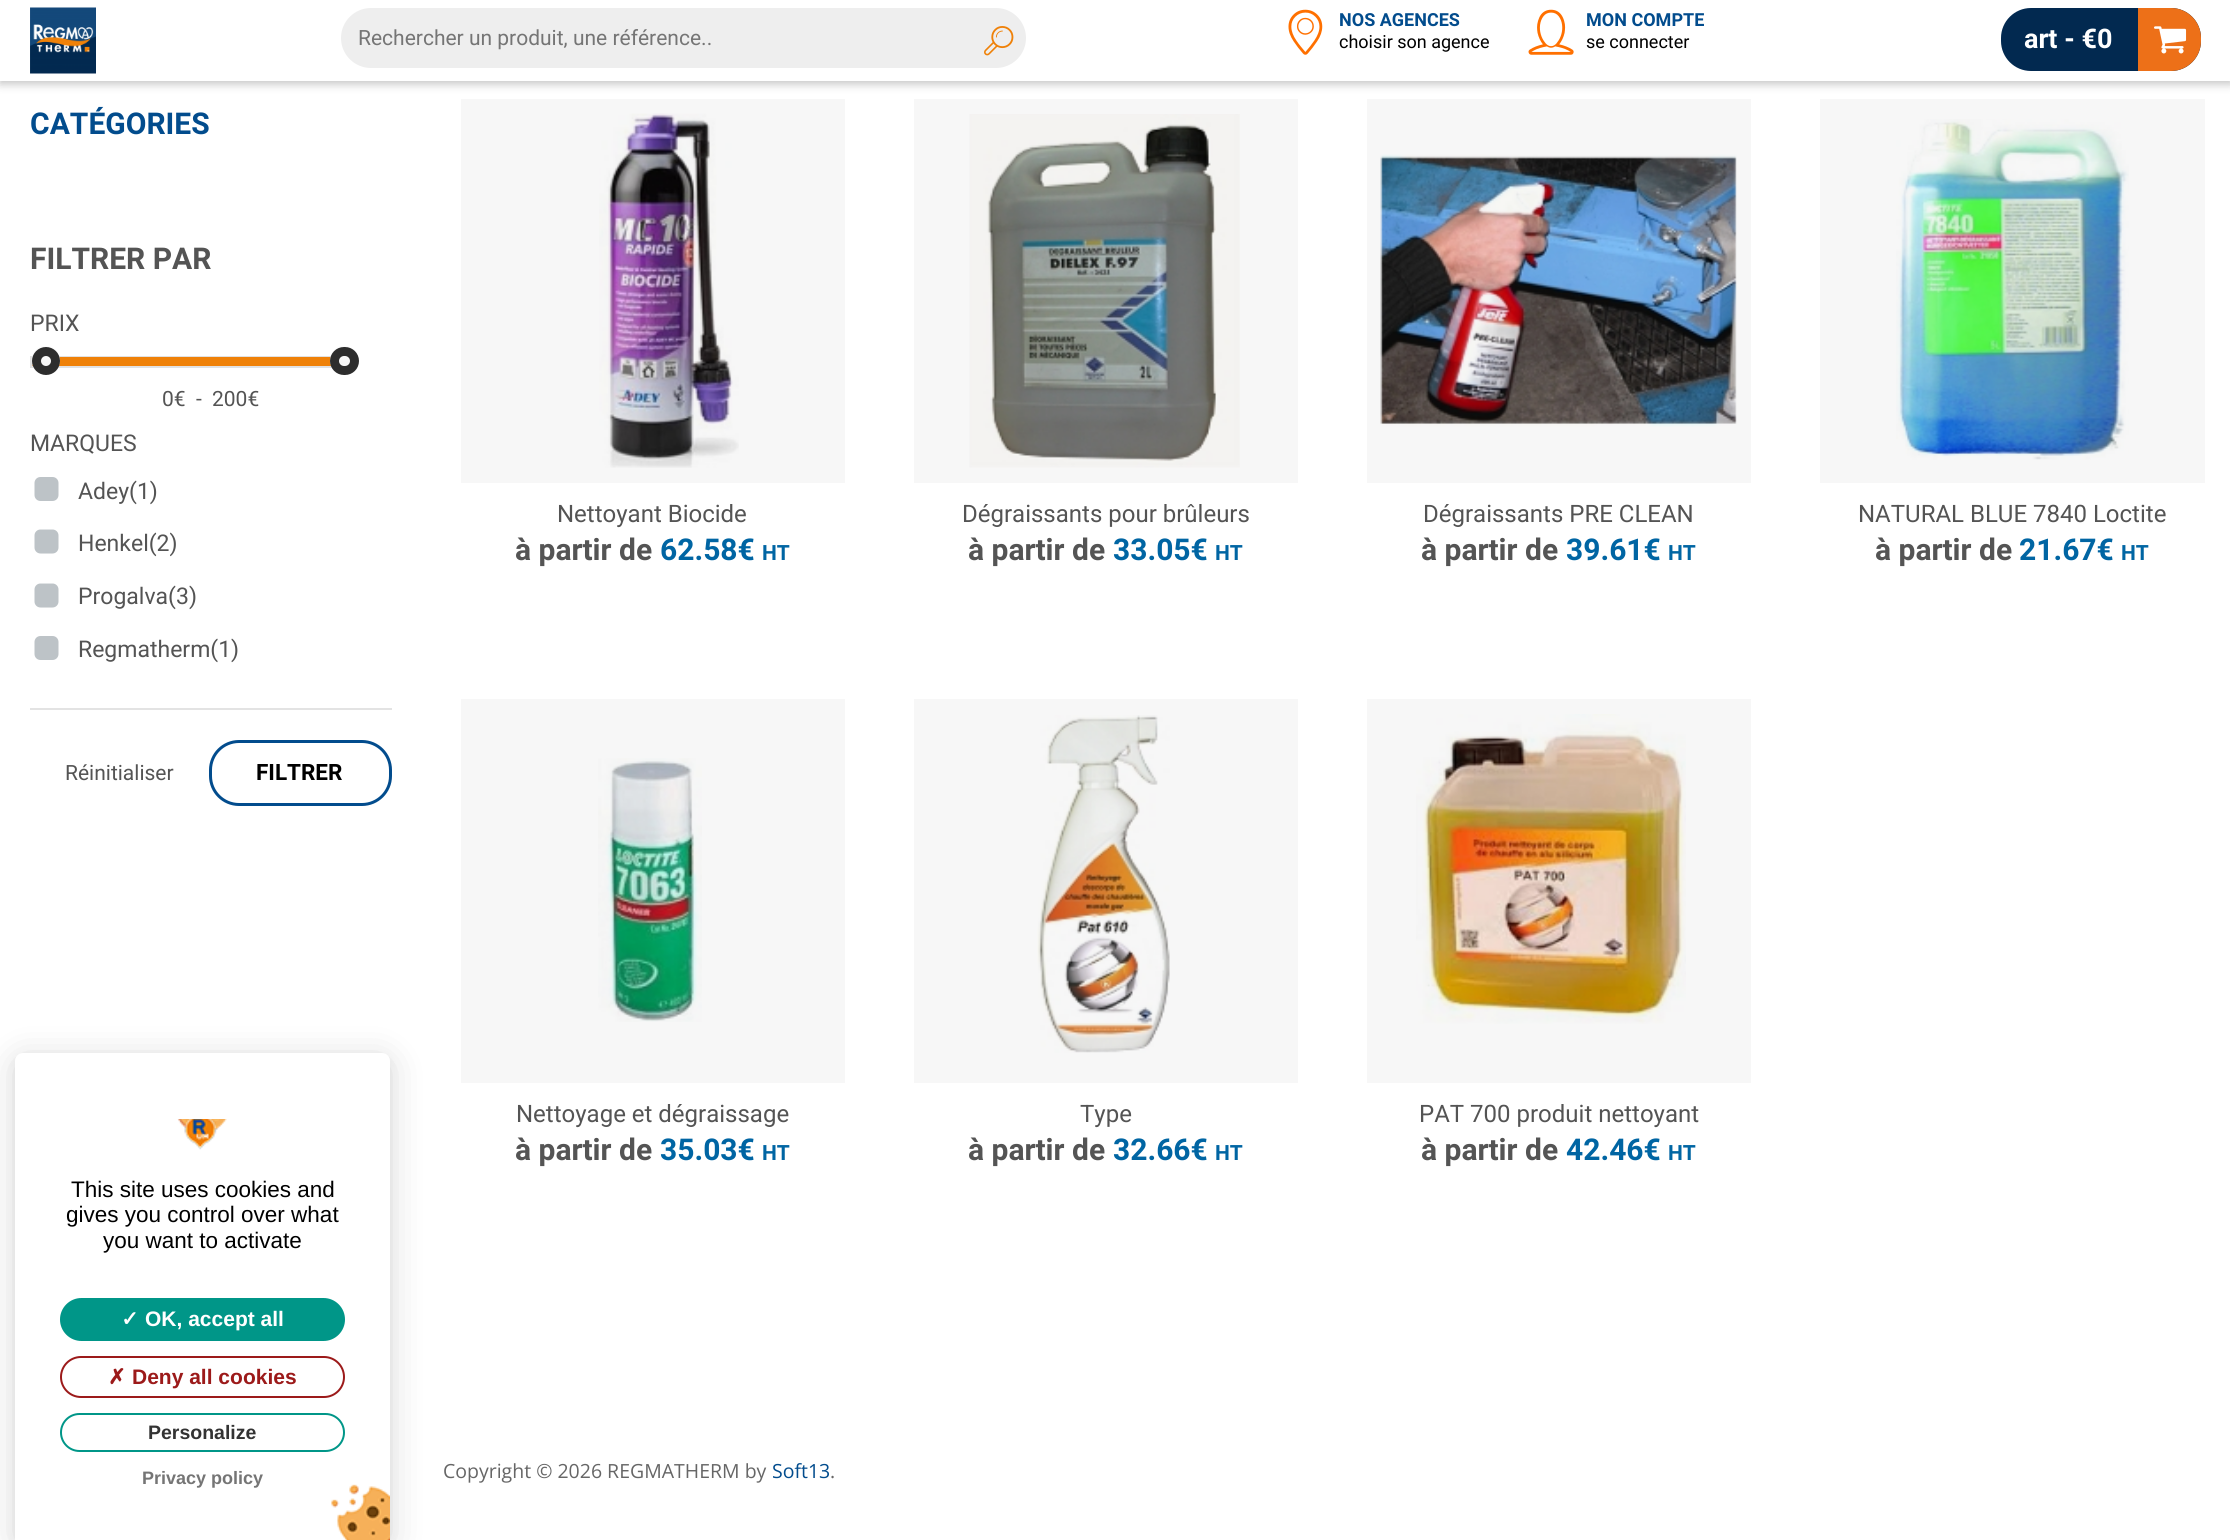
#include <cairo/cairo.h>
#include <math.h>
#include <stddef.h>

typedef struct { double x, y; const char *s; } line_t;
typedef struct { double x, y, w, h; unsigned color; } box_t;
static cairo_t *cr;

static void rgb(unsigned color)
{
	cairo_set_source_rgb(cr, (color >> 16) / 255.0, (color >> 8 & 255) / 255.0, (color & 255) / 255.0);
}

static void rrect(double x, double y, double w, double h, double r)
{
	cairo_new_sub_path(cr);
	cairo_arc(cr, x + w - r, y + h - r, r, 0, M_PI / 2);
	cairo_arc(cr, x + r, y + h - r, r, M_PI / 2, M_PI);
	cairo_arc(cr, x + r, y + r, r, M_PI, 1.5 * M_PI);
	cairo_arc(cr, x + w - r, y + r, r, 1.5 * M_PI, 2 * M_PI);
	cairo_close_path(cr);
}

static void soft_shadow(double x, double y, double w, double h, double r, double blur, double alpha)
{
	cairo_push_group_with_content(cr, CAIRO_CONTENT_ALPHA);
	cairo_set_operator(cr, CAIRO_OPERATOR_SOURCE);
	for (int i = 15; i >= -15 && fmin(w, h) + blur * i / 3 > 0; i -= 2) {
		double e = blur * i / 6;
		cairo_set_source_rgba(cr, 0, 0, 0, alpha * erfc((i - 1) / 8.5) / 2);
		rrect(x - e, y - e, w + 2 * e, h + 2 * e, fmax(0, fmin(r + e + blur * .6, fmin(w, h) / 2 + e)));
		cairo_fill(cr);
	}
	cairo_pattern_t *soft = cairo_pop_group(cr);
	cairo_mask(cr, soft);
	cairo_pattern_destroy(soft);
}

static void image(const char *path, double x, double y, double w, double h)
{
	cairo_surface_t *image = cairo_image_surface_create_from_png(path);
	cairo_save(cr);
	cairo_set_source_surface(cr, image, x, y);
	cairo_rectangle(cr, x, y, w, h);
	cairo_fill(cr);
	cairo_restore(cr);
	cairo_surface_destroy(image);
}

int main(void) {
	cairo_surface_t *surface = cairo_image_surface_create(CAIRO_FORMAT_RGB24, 2230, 1540);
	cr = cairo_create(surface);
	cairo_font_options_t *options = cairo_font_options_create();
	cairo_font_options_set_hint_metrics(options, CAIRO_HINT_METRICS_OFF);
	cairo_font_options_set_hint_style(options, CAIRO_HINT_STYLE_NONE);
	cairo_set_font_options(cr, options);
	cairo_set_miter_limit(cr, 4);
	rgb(0xffffff);
	cairo_paint(cr);
	{
		static const box_t items[] = {
			{1367, 699, 384, 384, 0xf7f7f7},
			{914, 699, 384, 384, 0xf7f7f7},
			{461, 699, 384, 384, 0xf7f7f7},
			{1820, 99, 385, 384, 0xf7f7f7},
			{1367, 99, 384, 384, 0xf7f7f7},
			{914, 99, 384, 384, 0xf7f7f7},
			{461, 99, 384, 384, 0xf7f7f7},
		};
		for (size_t i = 0; i < sizeof items / sizeof *items; i++) {
			rgb(items[i].color);
			cairo_rectangle(cr, items[i].x, items[i].y, items[i].w, items[i].h);
			cairo_fill(cr);
		}
	}
	rgb(0xadadad);
	soft_shadow(0, 3, 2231, 81, 0, 4.5, 0.72);
	rgb(0xffffff);
	cairo_rectangle(cr, 0, 0, 2230, 81);
	cairo_fill(cr);
	image("img/1.png", 30, 7, 66, 67);
	rgb(0xeeeeee);
	rrect(341, 8, 685, 60, 30);
	cairo_fill(cr);
	image("img/2.png", 984, 26, 30, 30);
	image("img/3.png", 1288, 9, 35, 46);
	image("img/4.png", 1528, 9, 46, 46);
	rgb(0x022950);
	rrect(2001, 8, 200, 63, 30);
	cairo_fill(cr);
	rgb(0xed7018);
	cairo_new_path(cr);
	cairo_move_to(cr, 2138, 8);
	cairo_line_to(cr, 2171, 8);
	cairo_curve_to(cr, 2187.5, 8, 2201, 21.5, 2201, 38);
	cairo_line_to(cr, 2201, 41);
	cairo_curve_to(cr, 2201, 57.5, 2187.5, 71, 2171, 71);
	cairo_line_to(cr, 2138, 71);
	cairo_close_path(cr);
	cairo_fill(cr);
	image("img/5.png", 2154, 26, 33, 28);
	rgb(0xe1e1e1);
	cairo_rectangle(cr, 30, 356, 302, 12);
	cairo_fill(cr);
	rgb(0xef8108);
	cairo_rectangle(cr, 32, 357, 299, 9);
	cairo_fill(cr);
	image("img/6.png", 31, 346, 29, 28);
	cairo_arc(cr, 46, 361, 9.5, 0, 2 * M_PI);
	rgb(0x2d2d2d);
	cairo_set_line_width(cr, 9);
	cairo_stroke(cr);
	image("img/7.png", 330, 346, 28, 28);
	rrect(334.5, 351.5, 20, 19, 9.5);
	cairo_stroke(cr);
	image("img/8.png", 34, 477, 25, 24);
	image("img/9.png", 34, 529, 25, 25);
	image("img/9.png", 34, 583, 25, 25);
	image("img/8.png", 34, 636, 25, 24);
	rgb(0xe3e3e3);
	cairo_rectangle(cr, 30, 708, 362, 2);
	cairo_fill(cr);
	rrect(210.5, 741.5, 180, 63, 28.5);
	rgb(0x024c8d);
	cairo_set_line_width(cr, 3);
	cairo_stroke(cr);
	image("img/10.png", 599, 113, 140, 355);
	image("img/11.png", 969, 114, 271, 354);
	image("img/12.png", 1380, 154, 357, 273);
	image("img/13.png", 1896, 119, 233, 341);
	image("img/14.png", 598, 758, 104, 264);
	image("img/15.png", 1037, 715, 133, 338);
	image("img/16.png", 1416, 714, 270, 310);
	rgb(0x000000);
	soft_shadow(15, 1056, 375, 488, 8, 4.5, 0.05);
	soft_shadow(15, 1059, 375, 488, 8, 18, 0.15);
	rgb(0xffffff);
	cairo_new_path(cr);
	cairo_move_to(cr, 23, 1053);
	cairo_line_to(cr, 382, 1053);
	cairo_curve_to(cr, 386.5, 1053, 390, 1056.5, 390, 1061);
	cairo_line_to(cr, 390, 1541);
	cairo_line_to(cr, 15, 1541);
	cairo_line_to(cr, 15, 1061);
	cairo_curve_to(cr, 15, 1056.5, 18.5, 1053, 23, 1053);
	cairo_close_path(cr);
	cairo_fill(cr);
	image("img/17.png", 331, 1484, 59, 56);
	image("img/18.png", 177, 1119, 50, 31);
	rgb(0x009688);
	rrect(61, 1299, 283, 41, 20.5);
	cairo_fill_preserve(cr);
	cairo_set_line_width(cr, 2);
	cairo_stroke(cr);
	rrect(61, 1357, 283, 40, 20);
	rgb(0x9c1a1a);
	cairo_stroke(cr);
	rrect(61, 1414, 283, 37, 18.5);
	rgb(0x009688);
	cairo_stroke(cr);
	cairo_select_font_face(cr, "Roboto", CAIRO_FONT_SLANT_NORMAL, CAIRO_FONT_WEIGHT_NORMAL);
	cairo_set_font_size(cr, 21);
	rgb(0x757575);
	cairo_move_to(cr, 358, 45);
	cairo_show_text(cr, "Rechercher un produit, une référence..");
	cairo_select_font_face(cr, "Roboto", CAIRO_FONT_SLANT_NORMAL, CAIRO_FONT_WEIGHT_BOLD);
	cairo_set_font_size(cr, 18);
	rgb(0x024c8d);
	cairo_move_to(cr, 1339, 26);
	cairo_show_text(cr, "NOS AGENCES");
	cairo_select_font_face(cr, "Roboto", CAIRO_FONT_SLANT_NORMAL, CAIRO_FONT_WEIGHT_NORMAL);
	rgb(0x000000);
	cairo_move_to(cr, 1339, 48);
	cairo_show_text(cr, "choisir son agence");
	cairo_select_font_face(cr, "Roboto", CAIRO_FONT_SLANT_NORMAL, CAIRO_FONT_WEIGHT_BOLD);
	rgb(0x024c8d);
	cairo_move_to(cr, 1586, 26);
	cairo_show_text(cr, "MON COMPTE");
	cairo_select_font_face(cr, "Roboto", CAIRO_FONT_SLANT_NORMAL, CAIRO_FONT_WEIGHT_NORMAL);
	rgb(0x000000);
	cairo_move_to(cr, 1586, 48);
	cairo_show_text(cr, "se connecter");
	cairo_select_font_face(cr, "Roboto", CAIRO_FONT_SLANT_NORMAL, CAIRO_FONT_WEIGHT_BOLD);
	cairo_set_font_size(cr, 27);
	rgb(0xffffff);
	cairo_move_to(cr, 2024, 48);
	cairo_show_text(cr, "art - €0");
	cairo_set_font_size(cr, 30);
	rgb(0x024c8d);
	cairo_move_to(cr, 30, 134);
	cairo_show_text(cr, "CATÉGORIES");
	rgb(0x545454);
	cairo_move_to(cr, 30, 269);
	cairo_show_text(cr, "FILTRER PAR");
	cairo_select_font_face(cr, "Roboto", CAIRO_FONT_SLANT_NORMAL, CAIRO_FONT_WEIGHT_NORMAL);
	cairo_set_font_size(cr, 23);
	cairo_move_to(cr, 30, 331);
	cairo_show_text(cr, "PRIX");
	cairo_set_font_size(cr, 21);
	{
		static const line_t items[] = {
			{162, 406, "0€"},
			{196, 406, "-"},
			{212, 406, "200€"},
		};
		for (size_t i = 0; i < sizeof items / sizeof *items; i++) {
			cairo_move_to(cr, items[i].x, items[i].y);
			cairo_show_text(cr, items[i].s);
		}
	}
	cairo_set_font_size(cr, 23);
	{
		static const line_t items[] = {
			{30, 451, "MARQUES"},
			{78, 499, "Adey(1)"},
			{78, 551, "Henkel(2)"},
			{78, 604, "Progalva(3)"},
			{78, 657, "Regmatherm(1)"},
		};
		for (size_t i = 0; i < sizeof items / sizeof *items; i++) {
			cairo_move_to(cr, items[i].x, items[i].y);
			cairo_show_text(cr, items[i].s);
		}
	}
	cairo_set_font_size(cr, 21);
	cairo_move_to(cr, 65, 780);
	cairo_show_text(cr, "Réinitialiser");
	cairo_select_font_face(cr, "Roboto", CAIRO_FONT_SLANT_NORMAL, CAIRO_FONT_WEIGHT_BOLD);
	cairo_set_font_size(cr, 22.5);
	rgb(0x000000);
	cairo_move_to(cr, 256, 780);
	cairo_show_text(cr, "FILTRER");
	cairo_select_font_face(cr, "Roboto", CAIRO_FONT_SLANT_NORMAL, CAIRO_FONT_WEIGHT_NORMAL);
	cairo_set_font_size(cr, 24);
	rgb(0x545454);
	cairo_move_to(cr, 557, 522);
	cairo_show_text(cr, "Nettoyant Biocide");
	cairo_select_font_face(cr, "Roboto", CAIRO_FONT_SLANT_NORMAL, CAIRO_FONT_WEIGHT_BOLD);
	cairo_set_font_size(cr, 30);
	cairo_move_to(cr, 515, 560);
	cairo_show_text(cr, "à partir de");
	rgb(0x0065a3);
	cairo_move_to(cr, 660, 560);
	cairo_show_text(cr, "62.58€");
	cairo_set_font_size(cr, 21);
	cairo_move_to(cr, 762, 560);
	cairo_show_text(cr, "HT");
	cairo_select_font_face(cr, "Roboto", CAIRO_FONT_SLANT_NORMAL, CAIRO_FONT_WEIGHT_NORMAL);
	cairo_set_font_size(cr, 24);
	rgb(0x545454);
	cairo_move_to(cr, 962, 522);
	cairo_show_text(cr, "Dégraissants pour brûleurs");
	cairo_select_font_face(cr, "Roboto", CAIRO_FONT_SLANT_NORMAL, CAIRO_FONT_WEIGHT_BOLD);
	cairo_set_font_size(cr, 30);
	cairo_move_to(cr, 968, 560);
	cairo_show_text(cr, "à partir de");
	rgb(0x0065a3);
	cairo_move_to(cr, 1113, 560);
	cairo_show_text(cr, "33.05€");
	cairo_set_font_size(cr, 21);
	cairo_move_to(cr, 1215, 560);
	cairo_show_text(cr, "HT");
	cairo_select_font_face(cr, "Roboto", CAIRO_FONT_SLANT_NORMAL, CAIRO_FONT_WEIGHT_NORMAL);
	cairo_set_font_size(cr, 24);
	rgb(0x545454);
	cairo_move_to(cr, 1423, 522);
	cairo_show_text(cr, "Dégraissants PRE CLEAN");
	cairo_select_font_face(cr, "Roboto", CAIRO_FONT_SLANT_NORMAL, CAIRO_FONT_WEIGHT_BOLD);
	cairo_set_font_size(cr, 30);
	cairo_move_to(cr, 1421, 560);
	cairo_show_text(cr, "à partir de");
	rgb(0x0065a3);
	cairo_move_to(cr, 1566, 560);
	cairo_show_text(cr, "39.61€");
	cairo_set_font_size(cr, 21);
	cairo_move_to(cr, 1668, 560);
	cairo_show_text(cr, "HT");
	cairo_select_font_face(cr, "Roboto", CAIRO_FONT_SLANT_NORMAL, CAIRO_FONT_WEIGHT_NORMAL);
	cairo_set_font_size(cr, 24);
	rgb(0x545454);
	cairo_move_to(cr, 1858, 522);
	cairo_show_text(cr, "NATURAL BLUE 7840 Loctite");
	cairo_select_font_face(cr, "Roboto", CAIRO_FONT_SLANT_NORMAL, CAIRO_FONT_WEIGHT_BOLD);
	cairo_set_font_size(cr, 30);
	cairo_move_to(cr, 1875, 560);
	cairo_show_text(cr, "à partir de");
	rgb(0x0065a3);
	cairo_move_to(cr, 2019, 560);
	cairo_show_text(cr, "21.67€");
	cairo_set_font_size(cr, 21);
	cairo_move_to(cr, 2121, 560);
	cairo_show_text(cr, "HT");
	cairo_select_font_face(cr, "Roboto", CAIRO_FONT_SLANT_NORMAL, CAIRO_FONT_WEIGHT_NORMAL);
	cairo_set_font_size(cr, 24);
	rgb(0x545454);
	cairo_move_to(cr, 516, 1122);
	cairo_show_text(cr, "Nettoyage et dégraissage");
	cairo_select_font_face(cr, "Roboto", CAIRO_FONT_SLANT_NORMAL, CAIRO_FONT_WEIGHT_BOLD);
	cairo_set_font_size(cr, 30);
	cairo_move_to(cr, 515, 1160);
	cairo_show_text(cr, "à partir de");
	rgb(0x0065a3);
	cairo_move_to(cr, 660, 1160);
	cairo_show_text(cr, "35.03€");
	cairo_set_font_size(cr, 21);
	cairo_move_to(cr, 762, 1160);
	cairo_show_text(cr, "HT");
	cairo_select_font_face(cr, "Roboto", CAIRO_FONT_SLANT_NORMAL, CAIRO_FONT_WEIGHT_NORMAL);
	cairo_set_font_size(cr, 24);
	rgb(0x545454);
	cairo_move_to(cr, 1080, 1122);
	cairo_show_text(cr, "Type");
	cairo_select_font_face(cr, "Roboto", CAIRO_FONT_SLANT_NORMAL, CAIRO_FONT_WEIGHT_BOLD);
	cairo_set_font_size(cr, 30);
	cairo_move_to(cr, 968, 1160);
	cairo_show_text(cr, "à partir de");
	rgb(0x0065a3);
	cairo_move_to(cr, 1113, 1160);
	cairo_show_text(cr, "32.66€");
	cairo_set_font_size(cr, 21);
	cairo_move_to(cr, 1215, 1160);
	cairo_show_text(cr, "HT");
	cairo_select_font_face(cr, "Roboto", CAIRO_FONT_SLANT_NORMAL, CAIRO_FONT_WEIGHT_NORMAL);
	cairo_set_font_size(cr, 24);
	rgb(0x545454);
	cairo_move_to(cr, 1419, 1122);
	cairo_show_text(cr, "PAT 700 produit nettoyant");
	cairo_select_font_face(cr, "Roboto", CAIRO_FONT_SLANT_NORMAL, CAIRO_FONT_WEIGHT_BOLD);
	cairo_set_font_size(cr, 30);
	cairo_move_to(cr, 1421, 1160);
	cairo_show_text(cr, "à partir de");
	rgb(0x0065a3);
	cairo_move_to(cr, 1566, 1160);
	cairo_show_text(cr, "42.46€");
	cairo_set_font_size(cr, 21);
	cairo_move_to(cr, 1668, 1160);
	cairo_show_text(cr, "HT");
	cairo_select_font_face(cr, "Open Sans", CAIRO_FONT_SLANT_NORMAL, CAIRO_FONT_WEIGHT_NORMAL);
	cairo_set_font_size(cr, 19.5);
	rgb(0x666666);
	cairo_move_to(cr, 443, 1478);
	cairo_show_text(cr, "Copyright © 2026 REGMATHERM by");
	rgb(0x024c8d);
	cairo_move_to(cr, 772, 1478);
	cairo_show_text(cr, "Soft13");
	rgb(0x666666);
	cairo_move_to(cr, 830, 1478);
	cairo_show_text(cr, ".");
	cairo_select_font_face(cr, "Liberation Sans", CAIRO_FONT_SLANT_NORMAL, CAIRO_FONT_WEIGHT_NORMAL);
	cairo_set_font_size(cr, 22.5);
	rgb(0x000000);
	{
		static const line_t items[] = {
			{71, 1197, "This site uses cookies and"},
			{66, 1222, "gives you control over what"},
			{103, 1248, "you want to activate"},
		};
		for (size_t i = 0; i < sizeof items / sizeof *items; i++) {
			cairo_move_to(cr, items[i].x, items[i].y);
			cairo_show_text(cr, items[i].s);
		}
	}
	cairo_select_font_face(cr, "DejaVu Sans", CAIRO_FONT_SLANT_NORMAL, CAIRO_FONT_WEIGHT_BOLD);
	cairo_set_font_size(cr, 21);
	rgb(0xffffff);
	cairo_move_to(cr, 121, 1326);
	cairo_show_text(cr, "✓");
	cairo_select_font_face(cr, "Liberation Sans", CAIRO_FONT_SLANT_NORMAL, CAIRO_FONT_WEIGHT_BOLD);
	cairo_move_to(cr, 145, 1326);
	cairo_show_text(cr, "OK, accept all");
	cairo_select_font_face(cr, "DejaVu Sans", CAIRO_FONT_SLANT_NORMAL, CAIRO_FONT_WEIGHT_BOLD);
	rgb(0x9c1a1a);
	cairo_move_to(cr, 108, 1384);
	cairo_show_text(cr, "✗");
	cairo_select_font_face(cr, "Liberation Sans", CAIRO_FONT_SLANT_NORMAL, CAIRO_FONT_WEIGHT_BOLD);
	cairo_move_to(cr, 132, 1384);
	cairo_show_text(cr, "Deny all cookies");
	cairo_set_font_size(cr, 19.5);
	rgb(0x333333);
	cairo_move_to(cr, 148, 1439);
	cairo_show_text(cr, "Personalize");
	cairo_set_font_size(cr, 18);
	rgb(0x757575);
	cairo_move_to(cr, 142, 1484);
	cairo_show_text(cr, "Privacy policy");
	cairo_surface_write_to_png(surface, "page.png");
	cairo_font_options_destroy(options);
	cairo_destroy(cr);
	cairo_surface_destroy(surface);
	return 0;
}
